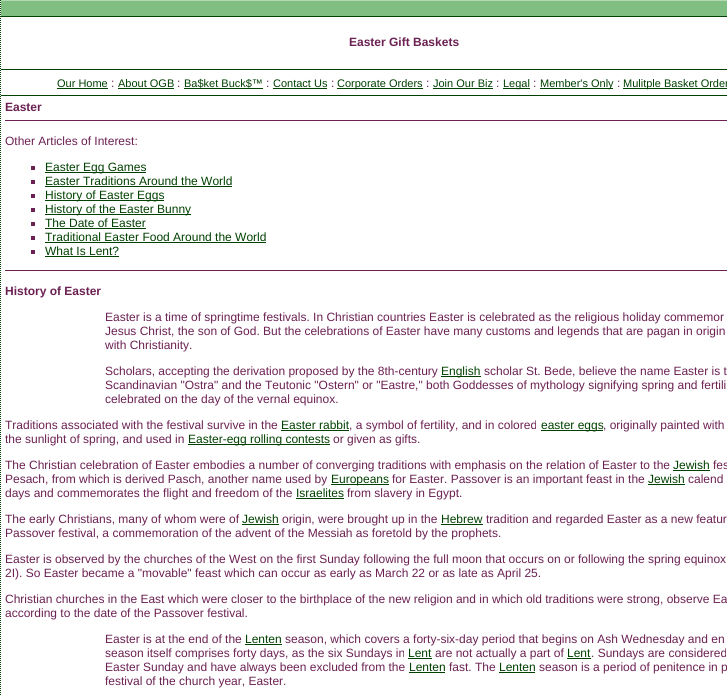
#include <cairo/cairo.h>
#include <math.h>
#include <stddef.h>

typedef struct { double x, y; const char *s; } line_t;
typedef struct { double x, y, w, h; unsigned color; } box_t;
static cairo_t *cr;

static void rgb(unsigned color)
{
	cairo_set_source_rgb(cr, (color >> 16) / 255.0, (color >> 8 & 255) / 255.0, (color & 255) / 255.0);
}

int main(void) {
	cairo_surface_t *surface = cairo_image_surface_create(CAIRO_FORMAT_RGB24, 727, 695);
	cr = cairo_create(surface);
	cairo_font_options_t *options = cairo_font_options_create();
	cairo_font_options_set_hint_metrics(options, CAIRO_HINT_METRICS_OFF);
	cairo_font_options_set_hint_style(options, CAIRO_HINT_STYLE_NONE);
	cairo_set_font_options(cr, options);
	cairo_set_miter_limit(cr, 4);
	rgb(0xffffff);
	cairo_paint(cr);
	cairo_new_path(cr);
	cairo_move_to(cr, 0.5, -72);
	cairo_line_to(cr, 0.5, 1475);
	rgb(0x004000);
	cairo_set_line_width(cr, 1);
	cairo_set_dash(cr, (double[]){1, 1}, 2, 0);
	cairo_stroke(cr);
	{
		static const box_t items[] = {
			{1, 0, 726, 1, 0xb3d8b3},
			{1, 1, 726, 15, 0x81be81},
			{1, 16, 726, 1, 0x004000},
			{1, 69, 726, 1, 0x004000},
			{57, 88, 51, 1, 0x004000},
			{118, 88, 56, 1, 0x004000},
			{184, 88, 79, 1, 0x004000},
			{273, 88, 54, 1, 0x004000},
			{337, 88, 86, 1, 0x004000},
			{433, 88, 60, 1, 0x004000},
			{503, 88, 27, 1, 0x004000},
			{540, 88, 73, 1, 0x004000},
			{623, 88, 104, 1, 0x004000},
			{1, 95, 726, 1, 0x004000},
			{5, 120, 722, 1, 0x6b2152},
			{31, 166, 4, 4, 0x6b2152},
			{45, 172, 101, 1, 0x004000},
			{31, 180, 4, 4, 0x6b2152},
			{45, 186, 187, 1, 0x004000},
			{31, 194, 4, 4, 0x6b2152},
			{45, 200, 119, 1, 0x004000},
			{31, 208, 4, 4, 0x6b2152},
			{45, 214, 146, 1, 0x004000},
			{31, 222, 4, 4, 0x6b2152},
			{45, 228, 101, 1, 0x004000},
			{31, 236, 4, 4, 0x6b2152},
			{45, 242, 221, 1, 0x004000},
			{31, 250, 4, 4, 0x6b2152},
			{45, 256, 74, 1, 0x004000},
			{5, 270, 722, 1, 0x6b2152},
			{441, 376, 40, 1, 0x004000},
			{281, 430, 68, 1, 0x004000},
			{541, 430, 62, 1, 0x004000},
			{188, 444, 142, 1, 0x004000},
			{673, 470, 37, 1, 0x004000},
			{331, 484, 58, 1, 0x004000},
			{648, 484, 37, 1, 0x004000},
			{296, 498, 48, 1, 0x004000},
			{242, 524, 37, 1, 0x004000},
			{441, 524, 42, 1, 0x004000},
			{245, 644, 37, 1, 0x004000},
			{408, 658, 24, 1, 0x004000},
			{567, 658, 24, 1, 0x004000},
			{409, 672, 36, 1, 0x004000},
			{499, 672, 36, 1, 0x004000},
		};
		for (size_t i = 0; i < sizeof items / sizeof *items; i++) {
			rgb(items[i].color);
			cairo_rectangle(cr, items[i].x, items[i].y, items[i].w, items[i].h);
			cairo_fill(cr);
		}
	}
	cairo_select_font_face(cr, "Liberation Sans", CAIRO_FONT_SLANT_NORMAL, CAIRO_FONT_WEIGHT_BOLD);
	cairo_set_font_size(cr, 12);
	rgb(0x6b2152);
	cairo_move_to(cr, 349, 46);
	cairo_show_text(cr, "Easter Gift Baskets");
	cairo_select_font_face(cr, "Liberation Sans", CAIRO_FONT_SLANT_NORMAL, CAIRO_FONT_WEIGHT_NORMAL);
	cairo_set_font_size(cr, 11);
	rgb(0x004000);
	cairo_move_to(cr, 57, 87);
	cairo_show_text(cr, "Our Home");
	cairo_set_font_size(cr, 12);
	rgb(0x6b2152);
	cairo_move_to(cr, 111, 87);
	cairo_show_text(cr, ":");
	cairo_set_font_size(cr, 11);
	rgb(0x004000);
	cairo_move_to(cr, 118, 87);
	cairo_show_text(cr, "About OGB");
	cairo_set_font_size(cr, 12);
	rgb(0x6b2152);
	cairo_move_to(cr, 177, 87);
	cairo_show_text(cr, ":");
	cairo_set_font_size(cr, 11);
	rgb(0x004000);
	cairo_move_to(cr, 184, 87);
	cairo_show_text(cr, "Ba$ket Buck$™");
	cairo_set_font_size(cr, 12);
	rgb(0x6b2152);
	cairo_move_to(cr, 266, 87);
	cairo_show_text(cr, ":");
	cairo_set_font_size(cr, 11);
	rgb(0x004000);
	cairo_move_to(cr, 273, 87);
	cairo_show_text(cr, "Contact Us");
	cairo_set_font_size(cr, 12);
	rgb(0x6b2152);
	cairo_move_to(cr, 331, 87);
	cairo_show_text(cr, ":");
	cairo_set_font_size(cr, 11);
	rgb(0x004000);
	cairo_move_to(cr, 337, 87);
	cairo_show_text(cr, "Corporate Orders");
	cairo_set_font_size(cr, 12);
	rgb(0x6b2152);
	cairo_move_to(cr, 426, 87);
	cairo_show_text(cr, ":");
	cairo_set_font_size(cr, 11);
	rgb(0x004000);
	cairo_move_to(cr, 433, 87);
	cairo_show_text(cr, "Join Our Biz");
	cairo_set_font_size(cr, 12);
	rgb(0x6b2152);
	cairo_move_to(cr, 496, 87);
	cairo_show_text(cr, ":");
	cairo_set_font_size(cr, 11);
	rgb(0x004000);
	cairo_move_to(cr, 503, 87);
	cairo_show_text(cr, "Legal");
	cairo_set_font_size(cr, 12);
	rgb(0x6b2152);
	cairo_move_to(cr, 533, 87);
	cairo_show_text(cr, ":");
	cairo_set_font_size(cr, 11);
	rgb(0x004000);
	cairo_move_to(cr, 540, 87);
	cairo_show_text(cr, "Member's Only");
	cairo_set_font_size(cr, 12);
	rgb(0x6b2152);
	cairo_move_to(cr, 617, 87);
	cairo_show_text(cr, ":");
	cairo_set_font_size(cr, 11);
	rgb(0x004000);
	cairo_move_to(cr, 623, 87);
	cairo_show_text(cr, "Mulitple Basket Order");
	cairo_select_font_face(cr, "Liberation Sans", CAIRO_FONT_SLANT_NORMAL, CAIRO_FONT_WEIGHT_BOLD);
	cairo_set_font_size(cr, 12);
	rgb(0x6b2152);
	cairo_move_to(cr, 5, 111);
	cairo_show_text(cr, "Easter");
	cairo_select_font_face(cr, "Liberation Sans", CAIRO_FONT_SLANT_NORMAL, CAIRO_FONT_WEIGHT_NORMAL);
	cairo_move_to(cr, 5, 145);
	cairo_show_text(cr, "Other Articles of Interest:");
	rgb(0x004000);
	{
		static const line_t items[] = {
			{45, 171, "Easter Egg Games"},
			{45, 185, "Easter Traditions Around the World"},
			{45, 199, "History of Easter Eggs"},
			{45, 213, "History of the Easter Bunny"},
			{45, 227, "The Date of Easter"},
			{45, 241, "Traditional Easter Food Around the World"},
			{45, 255, "What Is Lent?"},
		};
		for (size_t i = 0; i < sizeof items / sizeof *items; i++) {
			cairo_move_to(cr, items[i].x, items[i].y);
			cairo_show_text(cr, items[i].s);
		}
	}
	cairo_select_font_face(cr, "Liberation Sans", CAIRO_FONT_SLANT_NORMAL, CAIRO_FONT_WEIGHT_BOLD);
	rgb(0x6b2152);
	cairo_move_to(cr, 5, 295);
	cairo_show_text(cr, "History of Easter");
	cairo_select_font_face(cr, "Liberation Sans", CAIRO_FONT_SLANT_NORMAL, CAIRO_FONT_WEIGHT_NORMAL);
	{
		static const line_t items[] = {
			{105, 321, "Easter is a time of springtime festivals. In Christian countries Easter is celebrated as the religious holiday commemor"},
			{105, 335, "Jesus Christ, the son of God. But the celebrations of Easter have many customs and legends that are pagan in origin"},
			{105, 349, "with Christianity."},
			{105, 375, "Scholars, accepting the derivation proposed by the 8th-century"},
		};
		for (size_t i = 0; i < sizeof items / sizeof *items; i++) {
			cairo_move_to(cr, items[i].x, items[i].y);
			cairo_show_text(cr, items[i].s);
		}
	}
	rgb(0x004000);
	cairo_move_to(cr, 441, 375);
	cairo_show_text(cr, "English");
	rgb(0x6b2152);
	{
		static const line_t items[] = {
			{484, 375, "scholar St. Bede, believe the name Easter is t"},
			{105, 389, "Scandinavian \"Ostra\" and the Teutonic \"Ostern\" or \"Eastre,\" both Goddesses of mythology signifying spring and fertili"},
			{105, 403, "celebrated on the day of the vernal equinox."},
			{5, 429, "Traditions associated with the festival survive in the"},
		};
		for (size_t i = 0; i < sizeof items / sizeof *items; i++) {
			cairo_move_to(cr, items[i].x, items[i].y);
			cairo_show_text(cr, items[i].s);
		}
	}
	rgb(0x004000);
	cairo_move_to(cr, 281, 429);
	cairo_show_text(cr, "Easter rabbit");
	rgb(0x6b2152);
	cairo_move_to(cr, 349, 429);
	cairo_show_text(cr, ", a symbol of fertility, and in colored");
	rgb(0x004000);
	cairo_move_to(cr, 541, 429);
	cairo_show_text(cr, "easter eggs");
	rgb(0x6b2152);
	cairo_move_to(cr, 603, 429);
	cairo_show_text(cr, ", originally painted with");
	cairo_move_to(cr, 5, 443);
	cairo_show_text(cr, "the sunlight of spring, and used in");
	rgb(0x004000);
	cairo_move_to(cr, 188, 443);
	cairo_show_text(cr, "Easter-egg rolling contests");
	rgb(0x6b2152);
	cairo_move_to(cr, 333, 443);
	cairo_show_text(cr, "or given as gifts.");
	cairo_move_to(cr, 5, 469);
	cairo_show_text(cr, "The Christian celebration of Easter embodies a number of converging traditions with emphasis on the relation of Easter to the");
	rgb(0x004000);
	cairo_move_to(cr, 673, 469);
	cairo_show_text(cr, "Jewish");
	rgb(0x6b2152);
	cairo_move_to(cr, 713, 469);
	cairo_show_text(cr, "fes");
	cairo_move_to(cr, 5, 483);
	cairo_show_text(cr, "Pesach, from which is derived Pasch, another name used by");
	rgb(0x004000);
	cairo_move_to(cr, 331, 483);
	cairo_show_text(cr, "Europeans");
	rgb(0x6b2152);
	cairo_move_to(cr, 392, 483);
	cairo_show_text(cr, "for Easter. Passover is an important feast in the");
	rgb(0x004000);
	cairo_move_to(cr, 648, 483);
	cairo_show_text(cr, "Jewish");
	rgb(0x6b2152);
	cairo_move_to(cr, 688, 483);
	cairo_show_text(cr, "calend");
	cairo_move_to(cr, 5, 497);
	cairo_show_text(cr, "days and commemorates the flight and freedom of the");
	rgb(0x004000);
	cairo_move_to(cr, 296, 497);
	cairo_show_text(cr, "Israelites");
	rgb(0x6b2152);
	cairo_move_to(cr, 347, 497);
	cairo_show_text(cr, "from slavery in Egypt.");
	cairo_move_to(cr, 5, 523);
	cairo_show_text(cr, "The early Christians, many of whom were of");
	rgb(0x004000);
	cairo_move_to(cr, 242, 523);
	cairo_show_text(cr, "Jewish");
	rgb(0x6b2152);
	cairo_move_to(cr, 282, 523);
	cairo_show_text(cr, "origin, were brought up in the");
	rgb(0x004000);
	cairo_move_to(cr, 441, 523);
	cairo_show_text(cr, "Hebrew");
	rgb(0x6b2152);
	{
		static const line_t items[] = {
			{486, 523, "tradition and regarded Easter as a new featur"},
			{5, 537, "Passover festival, a commemoration of the advent of the Messiah as foretold by the prophets."},
			{5, 563, "Easter is observed by the churches of the West on the first Sunday following the full moon that occurs on or following the spring equinox"},
			{5, 577, "2I). So Easter became a \"movable\" feast which can occur as early as March 22 or as late as April 25."},
			{5, 603, "Christian churches in the East which were closer to the birthplace of the new religion and in which old traditions were strong, observe Ea"},
			{5, 617, "according to the date of the Passover festival."},
			{105, 643, "Easter is at the end of the"},
		};
		for (size_t i = 0; i < sizeof items / sizeof *items; i++) {
			cairo_move_to(cr, items[i].x, items[i].y);
			cairo_show_text(cr, items[i].s);
		}
	}
	rgb(0x004000);
	cairo_move_to(cr, 245, 643);
	cairo_show_text(cr, "Lenten");
	rgb(0x6b2152);
	cairo_move_to(cr, 285, 643);
	cairo_show_text(cr, "season, which covers a forty-six-day period that begins on Ash Wednesday and en");
	cairo_move_to(cr, 105, 657);
	cairo_show_text(cr, "season itself comprises forty days, as the six Sundays in");
	rgb(0x004000);
	cairo_move_to(cr, 408, 657);
	cairo_show_text(cr, "Lent");
	rgb(0x6b2152);
	cairo_move_to(cr, 435, 657);
	cairo_show_text(cr, "are not actually a part of");
	rgb(0x004000);
	cairo_move_to(cr, 567, 657);
	cairo_show_text(cr, "Lent");
	rgb(0x6b2152);
	cairo_move_to(cr, 591, 657);
	cairo_show_text(cr, ". Sundays are considered");
	cairo_move_to(cr, 105, 671);
	cairo_show_text(cr, "Easter Sunday and have always been excluded from the");
	rgb(0x004000);
	cairo_move_to(cr, 409, 671);
	cairo_show_text(cr, "Lenten");
	rgb(0x6b2152);
	cairo_move_to(cr, 449, 671);
	cairo_show_text(cr, "fast. The");
	rgb(0x004000);
	cairo_move_to(cr, 499, 671);
	cairo_show_text(cr, "Lenten");
	rgb(0x6b2152);
	cairo_move_to(cr, 539, 671);
	cairo_show_text(cr, "season is a period of penitence in p");
	cairo_move_to(cr, 105, 685);
	cairo_show_text(cr, "festival of the church year, Easter.");
	cairo_surface_write_to_png(surface, "page.png");
	cairo_font_options_destroy(options);
	cairo_destroy(cr);
	cairo_surface_destroy(surface);
	return 0;
}
